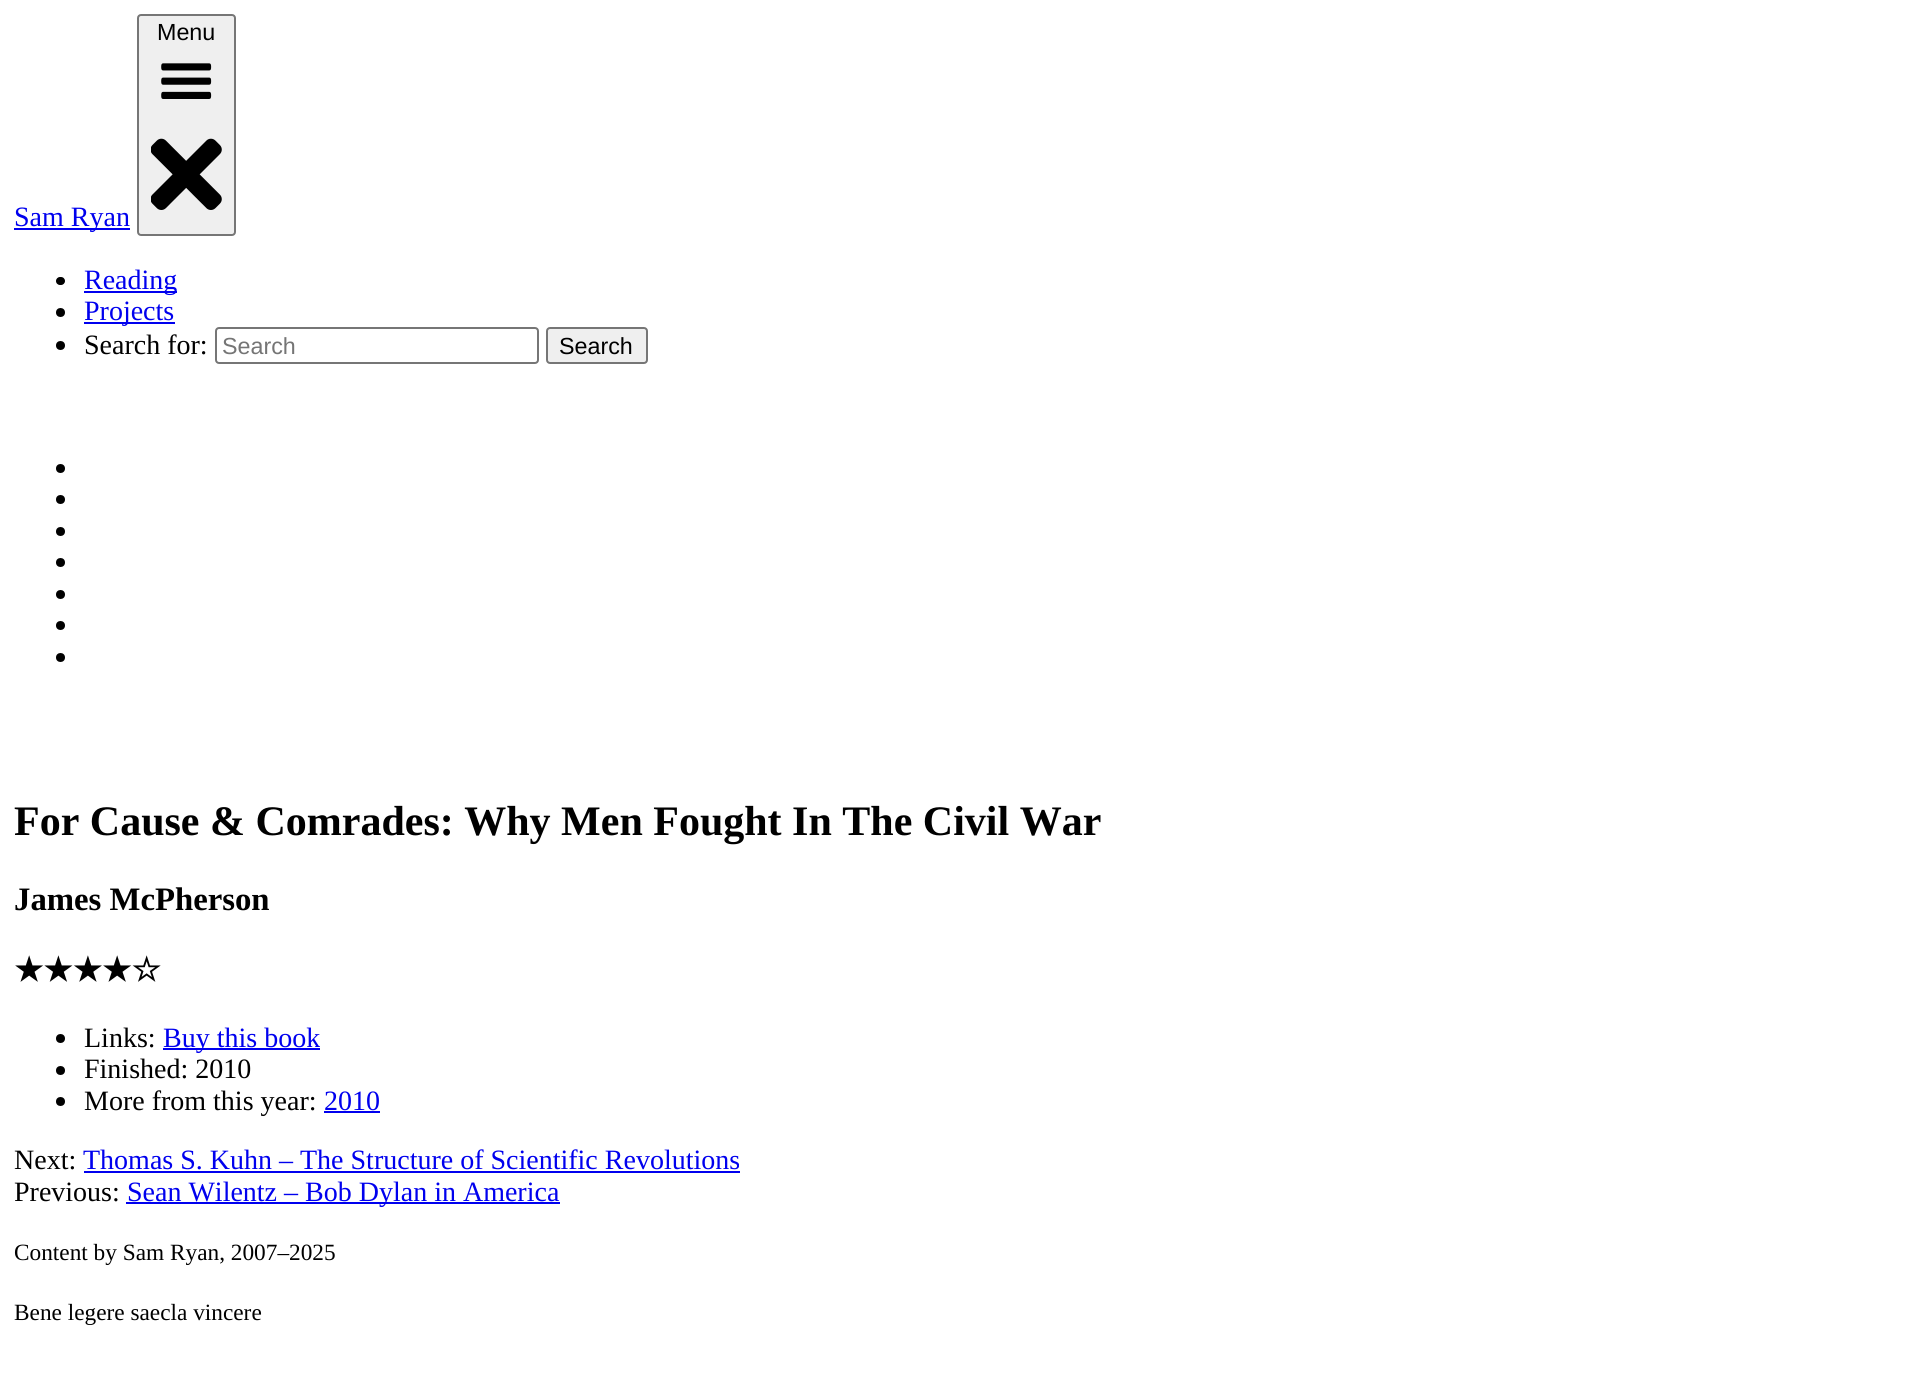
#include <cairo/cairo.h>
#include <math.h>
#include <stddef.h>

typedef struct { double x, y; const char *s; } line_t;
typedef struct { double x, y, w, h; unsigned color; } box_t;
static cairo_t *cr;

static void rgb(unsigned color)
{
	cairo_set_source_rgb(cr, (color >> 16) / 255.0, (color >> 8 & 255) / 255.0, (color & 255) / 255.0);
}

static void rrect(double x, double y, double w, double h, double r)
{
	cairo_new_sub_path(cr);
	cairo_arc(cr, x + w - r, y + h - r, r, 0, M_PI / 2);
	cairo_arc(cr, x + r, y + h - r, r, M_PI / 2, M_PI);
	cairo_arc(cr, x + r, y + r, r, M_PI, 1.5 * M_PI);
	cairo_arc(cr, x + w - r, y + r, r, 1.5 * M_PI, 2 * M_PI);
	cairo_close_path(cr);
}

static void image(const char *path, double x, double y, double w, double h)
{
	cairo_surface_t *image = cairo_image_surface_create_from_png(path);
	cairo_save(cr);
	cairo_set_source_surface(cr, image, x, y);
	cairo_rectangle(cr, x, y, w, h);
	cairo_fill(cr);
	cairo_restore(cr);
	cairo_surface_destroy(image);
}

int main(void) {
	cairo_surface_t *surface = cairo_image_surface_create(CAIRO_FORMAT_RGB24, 1928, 1392);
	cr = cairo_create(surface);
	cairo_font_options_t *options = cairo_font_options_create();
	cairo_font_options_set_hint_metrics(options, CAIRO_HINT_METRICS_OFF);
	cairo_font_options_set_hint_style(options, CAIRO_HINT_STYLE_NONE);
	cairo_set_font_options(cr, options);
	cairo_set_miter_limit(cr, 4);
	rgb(0xffffff);
	cairo_paint(cr);
	rgb(0xefefef);
	rrect(138, 15, 97, 220, 3);
	cairo_fill_preserve(cr);
	rgb(0x767676);
	cairo_stroke(cr);
	image("img/1.png", 161, 63, 51, 36);
	image("img/2.png", 151, 138, 71, 72);
	rgb(0x0000ee);
	cairo_rectangle(cr, 14, 228, 116, 2);
	cairo_fill(cr);
	rgb(0x000000);
	rrect(56, 277, 9, 8, 4);
	cairo_fill(cr);
	rgb(0x0000ee);
	cairo_rectangle(cr, 84, 291, 93, 2);
	cairo_fill(cr);
	rgb(0x000000);
	cairo_arc(cr, 60.5, 312.5, 4.5, 0, 2 * M_PI);
	cairo_fill(cr);
	rgb(0x0000ee);
	cairo_rectangle(cr, 84, 322, 91, 2);
	cairo_fill(cr);
	rgb(0x000000);
	cairo_arc(cr, 60.5, 345.5, 4.5, 0, 2 * M_PI);
	cairo_fill(cr);
	rrect(216, 328, 322, 35, 3);
	rgb(0x767676);
	cairo_stroke(cr);
	rgb(0xefefef);
	rrect(547, 328, 100, 35, 3);
	cairo_fill_preserve(cr);
	rgb(0x767676);
	cairo_stroke(cr);
	rgb(0x000000);
	cairo_arc(cr, 60.5, 468.5, 4.5, 0, 2 * M_PI);
	cairo_fill(cr);
	cairo_arc(cr, 60.5, 499.5, 4.5, 0, 2 * M_PI);
	cairo_fill(cr);
	cairo_arc(cr, 60.5, 531.5, 4.5, 0, 2 * M_PI);
	cairo_fill(cr);
	cairo_arc(cr, 60.5, 562.5, 4.5, 0, 2 * M_PI);
	cairo_fill(cr);
	cairo_arc(cr, 60.5, 594.5, 4.5, 0, 2 * M_PI);
	cairo_fill(cr);
	cairo_arc(cr, 60.5, 625.5, 4.5, 0, 2 * M_PI);
	cairo_fill(cr);
	cairo_arc(cr, 60.5, 657.5, 4.5, 0, 2 * M_PI);
	cairo_fill(cr);
	cairo_arc(cr, 60.5, 1038.5, 4.5, 0, 2 * M_PI);
	cairo_fill(cr);
	rgb(0x0000ee);
	cairo_rectangle(cr, 163, 1048, 157, 2);
	cairo_fill(cr);
	rgb(0x000000);
	cairo_arc(cr, 60.5, 1070.5, 4.5, 0, 2 * M_PI);
	cairo_fill(cr);
	cairo_arc(cr, 60.5, 1101.5, 4.5, 0, 2 * M_PI);
	cairo_fill(cr);
	{
		static const box_t items[] = {
			{324, 1111, 56, 2, 0x0000ee},
			{84, 1171, 656, 2, 0x0000ee},
			{126, 1202, 434, 2, 0x0000ee},
		};
		for (size_t i = 0; i < sizeof items / sizeof *items; i++) {
			rgb(items[i].color);
			cairo_rectangle(cr, items[i].x, items[i].y, items[i].w, items[i].h);
			cairo_fill(cr);
		}
	}
	cairo_select_font_face(cr, "Liberation Sans", CAIRO_FONT_SLANT_NORMAL, CAIRO_FONT_WEIGHT_NORMAL);
	cairo_set_font_size(cr, 23.3);
	rgb(0x000000);
	cairo_move_to(cr, 157, 40);
	cairo_show_text(cr, "Menu");
	cairo_select_font_face(cr, "Liberation Serif", CAIRO_FONT_SLANT_NORMAL, CAIRO_FONT_WEIGHT_NORMAL);
	cairo_set_font_size(cr, 28);
	rgb(0x0000ee);
	{
		static const line_t items[] = {
			{14, 226, "Sam Ryan"},
			{84, 289, "Reading"},
			{84, 320, "Projects"},
		};
		for (size_t i = 0; i < sizeof items / sizeof *items; i++) {
			cairo_move_to(cr, items[i].x, items[i].y);
			cairo_show_text(cr, items[i].s);
		}
	}
	rgb(0x000000);
	cairo_move_to(cr, 84, 354);
	cairo_show_text(cr, "Search for:");
	cairo_select_font_face(cr, "Liberation Sans", CAIRO_FONT_SLANT_NORMAL, CAIRO_FONT_WEIGHT_NORMAL);
	cairo_set_font_size(cr, 23.3);
	rgb(0x757575);
	cairo_move_to(cr, 222, 354);
	cairo_show_text(cr, "Search");
	rgb(0x000000);
	cairo_move_to(cr, 559, 354);
	cairo_show_text(cr, "Search");
	cairo_select_font_face(cr, "Liberation Serif", CAIRO_FONT_SLANT_NORMAL, CAIRO_FONT_WEIGHT_BOLD);
	cairo_set_font_size(cr, 42);
	cairo_move_to(cr, 14, 835);
	cairo_show_text(cr, "For Cause & Comrades: Why Men Fought In The Civil War");
	cairo_set_font_size(cr, 32.75);
	cairo_move_to(cr, 14, 910);
	cairo_show_text(cr, "James McPherson");
	cairo_select_font_face(cr, "DejaVu Sans", CAIRO_FONT_SLANT_NORMAL, CAIRO_FONT_WEIGHT_BOLD);
	cairo_move_to(cr, 14, 981);
	cairo_show_text(cr, "★★★★☆");
	cairo_select_font_face(cr, "Liberation Serif", CAIRO_FONT_SLANT_NORMAL, CAIRO_FONT_WEIGHT_NORMAL);
	cairo_set_font_size(cr, 28);
	cairo_move_to(cr, 84, 1047);
	cairo_show_text(cr, "Links:");
	rgb(0x0000ee);
	cairo_move_to(cr, 163, 1047);
	cairo_show_text(cr, "Buy this book");
	rgb(0x000000);
	cairo_move_to(cr, 84, 1078);
	cairo_show_text(cr, "Finished: 2010");
	cairo_move_to(cr, 84, 1110);
	cairo_show_text(cr, "More from this year:");
	rgb(0x0000ee);
	cairo_move_to(cr, 324, 1110);
	cairo_show_text(cr, "2010");
	rgb(0x000000);
	cairo_move_to(cr, 14, 1169);
	cairo_show_text(cr, "Next:");
	rgb(0x0000ee);
	cairo_move_to(cr, 83, 1169);
	cairo_show_text(cr, "Thomas S. Kuhn – The Structure of Scientific Revolutions");
	rgb(0x000000);
	cairo_move_to(cr, 14, 1201);
	cairo_show_text(cr, "Previous:");
	rgb(0x0000ee);
	cairo_move_to(cr, 127, 1201);
	cairo_show_text(cr, "Sean Wilentz – Bob Dylan in America");
	cairo_set_font_size(cr, 23.3);
	rgb(0x000000);
	cairo_move_to(cr, 14, 1260);
	cairo_show_text(cr, "Content by Sam Ryan, 2007–2025");
	cairo_move_to(cr, 14, 1320);
	cairo_show_text(cr, "Bene legere saecla vincere");
	cairo_surface_write_to_png(surface, "page.png");
	cairo_font_options_destroy(options);
	cairo_destroy(cr);
	cairo_surface_destroy(surface);
	return 0;
}
